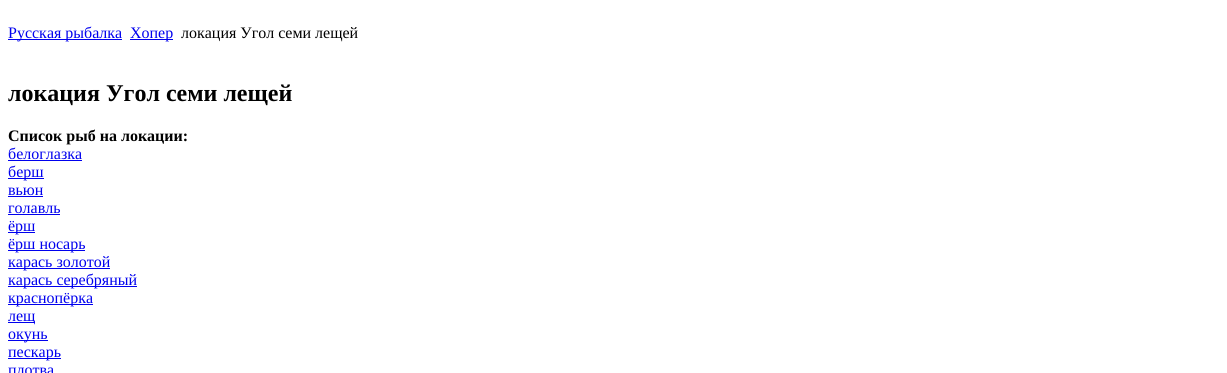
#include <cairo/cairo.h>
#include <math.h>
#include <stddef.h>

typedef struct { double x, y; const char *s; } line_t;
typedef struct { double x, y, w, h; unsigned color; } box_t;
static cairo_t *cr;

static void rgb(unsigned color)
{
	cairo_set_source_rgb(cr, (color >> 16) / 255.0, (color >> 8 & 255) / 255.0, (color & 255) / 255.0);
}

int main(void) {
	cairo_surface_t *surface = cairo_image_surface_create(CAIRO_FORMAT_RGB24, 1227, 373);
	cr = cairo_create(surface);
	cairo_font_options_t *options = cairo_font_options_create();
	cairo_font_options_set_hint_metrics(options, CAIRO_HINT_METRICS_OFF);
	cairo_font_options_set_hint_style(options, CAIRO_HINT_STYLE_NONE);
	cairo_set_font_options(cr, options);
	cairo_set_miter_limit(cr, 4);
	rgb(0xffffff);
	cairo_paint(cr);
	{
		static const box_t items[] = {
			{8, 39, 114, 1, 0x0000ee},
			{130, 39, 43, 1, 0x0000ee},
			{8, 160, 74, 1, 0x0000ee},
			{8, 178, 36, 1, 0x0000ee},
			{8, 196, 35, 1, 0x0000ee},
			{8, 214, 52, 1, 0x0000ee},
			{8, 232, 27, 1, 0x0000ee},
			{8, 250, 77, 1, 0x0000ee},
			{8, 268, 102, 1, 0x0000ee},
			{8, 286, 129, 1, 0x0000ee},
			{8, 304, 85, 1, 0x0000ee},
			{8, 322, 27, 1, 0x0000ee},
			{8, 340, 40, 1, 0x0000ee},
			{8, 358, 53, 1, 0x0000ee},
		};
		for (size_t i = 0; i < sizeof items / sizeof *items; i++) {
			rgb(items[i].color);
			cairo_rectangle(cr, items[i].x, items[i].y, items[i].w, items[i].h);
			cairo_fill(cr);
		}
	}
	cairo_select_font_face(cr, "Liberation Serif", CAIRO_FONT_SLANT_NORMAL, CAIRO_FONT_WEIGHT_NORMAL);
	cairo_set_font_size(cr, 16);
	cairo_move_to(cr, 8, 38);
	cairo_show_text(cr, "Русская рыбалка");
	cairo_move_to(cr, 130, 38);
	cairo_show_text(cr, "Хопер");
	rgb(0x000000);
	cairo_move_to(cr, 181, 38);
	cairo_show_text(cr, "локация Угол семи лещей");
	cairo_select_font_face(cr, "Liberation Serif", CAIRO_FONT_SLANT_NORMAL, CAIRO_FONT_WEIGHT_BOLD);
	cairo_set_font_size(cr, 24);
	cairo_move_to(cr, 8, 101);
	cairo_show_text(cr, "локация Угол семи лещей");
	cairo_set_font_size(cr, 16);
	cairo_move_to(cr, 8, 141);
	cairo_show_text(cr, "Список рыб на локации:");
	cairo_select_font_face(cr, "Liberation Serif", CAIRO_FONT_SLANT_NORMAL, CAIRO_FONT_WEIGHT_NORMAL);
	rgb(0x0000ee);
	{
		static const line_t items[] = {
			{8, 159, "белоглазка"},
			{8, 177, "берш"},
			{8, 195, "вьюн"},
			{8, 213, "голавль"},
			{8, 231, "ёрш"},
			{8, 249, "ёрш носарь"},
			{8, 267, "карась золотой"},
			{8, 285, "карась серебряный"},
			{8, 303, "краснопёрка"},
			{8, 321, "лещ"},
			{8, 339, "окунь"},
			{8, 357, "пескарь"},
			{8, 375, "плотва"},
		};
		for (size_t i = 0; i < sizeof items / sizeof *items; i++) {
			cairo_move_to(cr, items[i].x, items[i].y);
			cairo_show_text(cr, items[i].s);
		}
	}
	cairo_surface_write_to_png(surface, "page.png");
	cairo_font_options_destroy(options);
	cairo_destroy(cr);
	cairo_surface_destroy(surface);
	return 0;
}
